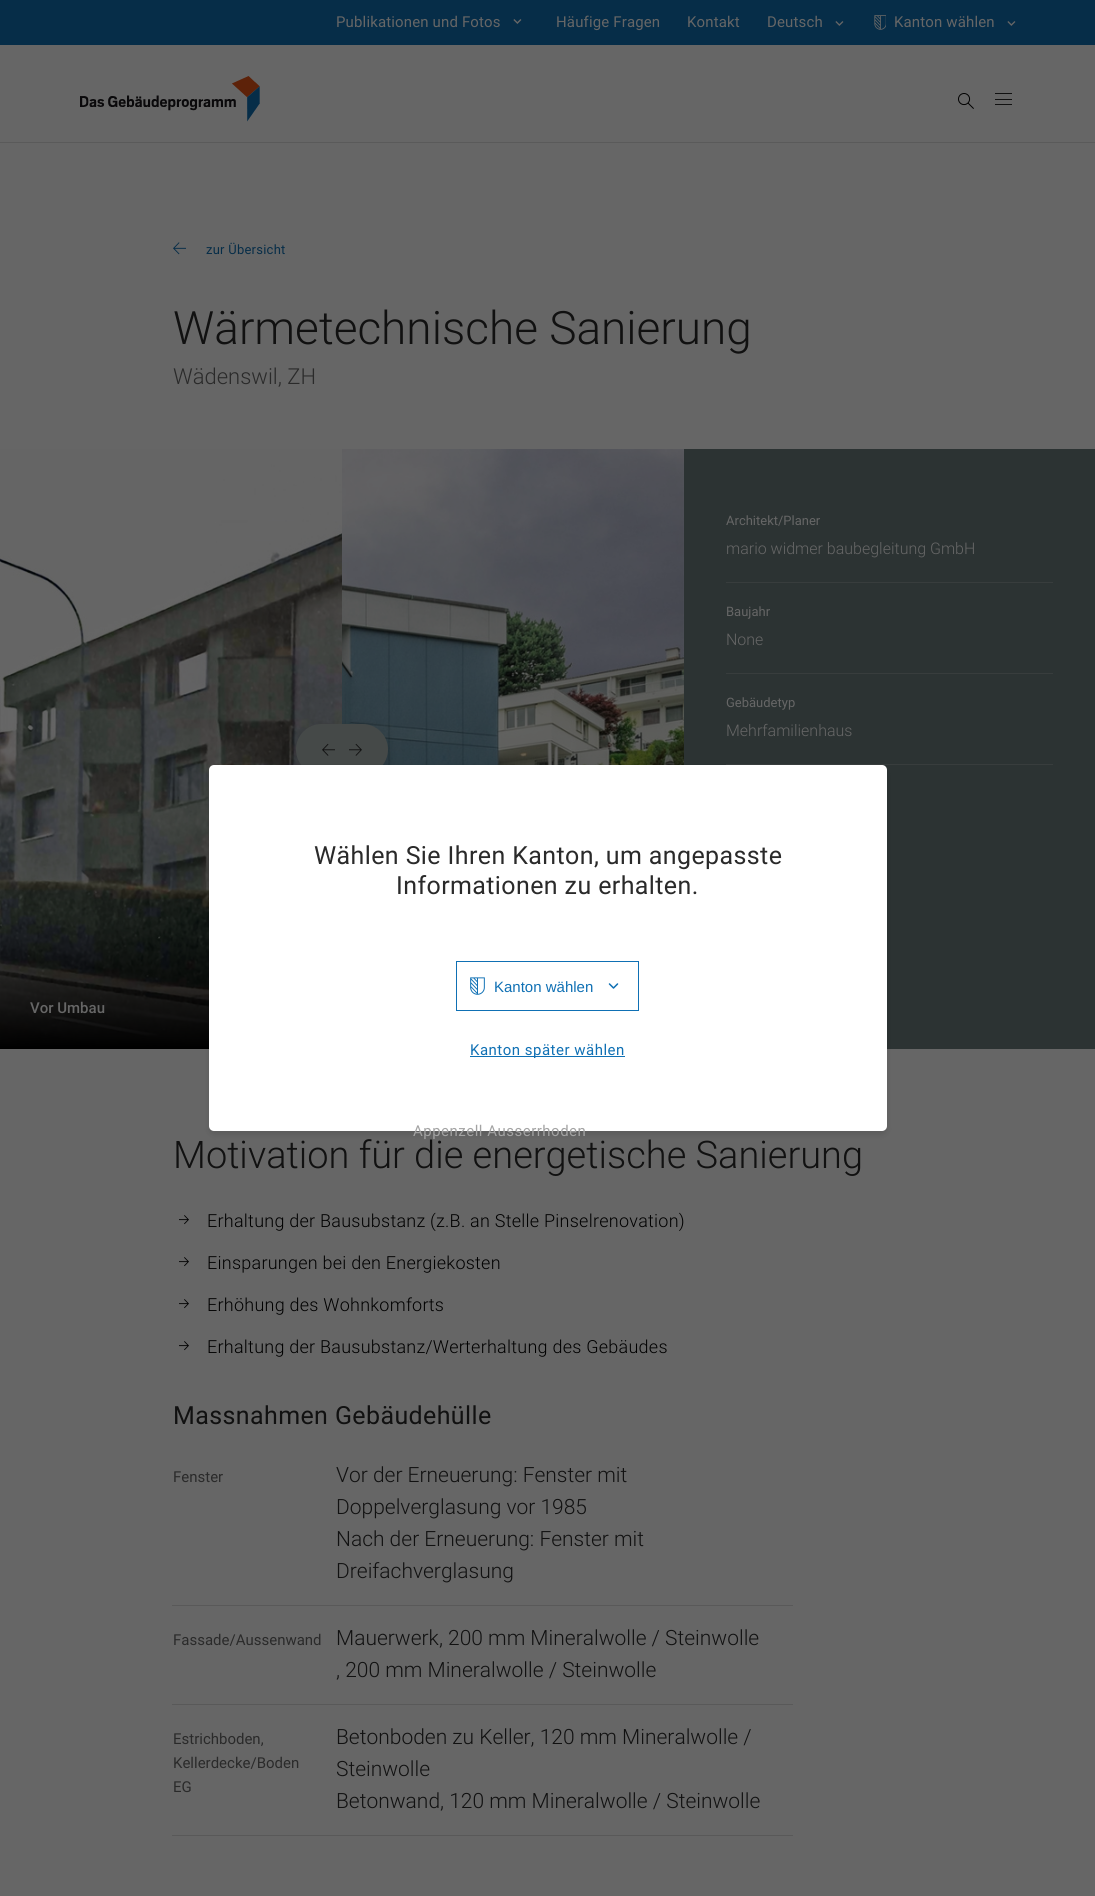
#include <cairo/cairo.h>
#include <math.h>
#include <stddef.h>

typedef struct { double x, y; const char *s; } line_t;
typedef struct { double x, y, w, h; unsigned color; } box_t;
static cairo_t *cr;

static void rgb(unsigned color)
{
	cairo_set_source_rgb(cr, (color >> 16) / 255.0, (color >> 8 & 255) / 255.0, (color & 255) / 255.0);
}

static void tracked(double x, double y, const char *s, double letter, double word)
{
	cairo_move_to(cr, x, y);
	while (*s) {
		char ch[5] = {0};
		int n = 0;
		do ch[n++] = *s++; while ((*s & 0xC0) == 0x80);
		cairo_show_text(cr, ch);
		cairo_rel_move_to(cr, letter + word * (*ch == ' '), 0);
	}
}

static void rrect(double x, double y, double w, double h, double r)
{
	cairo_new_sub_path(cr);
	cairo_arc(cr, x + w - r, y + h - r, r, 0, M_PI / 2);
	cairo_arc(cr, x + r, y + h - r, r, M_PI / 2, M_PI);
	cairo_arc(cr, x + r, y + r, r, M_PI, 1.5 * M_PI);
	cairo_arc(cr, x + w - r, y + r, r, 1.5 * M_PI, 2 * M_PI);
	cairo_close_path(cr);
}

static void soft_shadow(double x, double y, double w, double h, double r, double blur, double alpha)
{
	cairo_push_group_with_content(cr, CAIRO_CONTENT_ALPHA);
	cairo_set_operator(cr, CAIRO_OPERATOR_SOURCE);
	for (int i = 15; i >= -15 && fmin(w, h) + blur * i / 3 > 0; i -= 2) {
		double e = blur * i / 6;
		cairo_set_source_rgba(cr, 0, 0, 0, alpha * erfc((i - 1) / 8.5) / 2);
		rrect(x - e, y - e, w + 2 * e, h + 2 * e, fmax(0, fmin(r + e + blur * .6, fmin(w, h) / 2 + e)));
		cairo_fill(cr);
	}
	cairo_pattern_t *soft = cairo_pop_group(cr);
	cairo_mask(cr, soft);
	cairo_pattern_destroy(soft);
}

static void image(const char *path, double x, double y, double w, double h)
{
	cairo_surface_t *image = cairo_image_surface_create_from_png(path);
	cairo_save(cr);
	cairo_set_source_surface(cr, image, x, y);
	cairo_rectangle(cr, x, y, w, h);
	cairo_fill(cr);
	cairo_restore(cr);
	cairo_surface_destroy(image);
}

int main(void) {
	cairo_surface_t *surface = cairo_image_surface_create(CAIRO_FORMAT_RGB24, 1095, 1896);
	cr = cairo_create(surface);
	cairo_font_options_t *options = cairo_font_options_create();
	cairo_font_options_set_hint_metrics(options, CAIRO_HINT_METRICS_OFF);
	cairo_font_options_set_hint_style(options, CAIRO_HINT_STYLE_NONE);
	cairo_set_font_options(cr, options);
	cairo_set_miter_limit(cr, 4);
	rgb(0x666666);
	cairo_paint(cr);
	rgb(0x062d48);
	cairo_rectangle(cr, 0, 0, 1095, 45);
	cairo_fill(cr);
	image("img/1.png", 513, 19, 9, 5);
	image("img/2.png", 835, 21, 9, 5);
	image("img/3.png", 874, 15, 12, 15);
	image("img/2.png", 1007, 21, 9, 5);
	image("img/4.png", 80, 76, 180, 46);
	image("img/5.png", 958, 93, 16, 16);
	{
		static const box_t items[] = {
			{995, 93, 17, 1, 0x111111},
			{995, 99, 17, 1, 0x111111},
			{995, 104, 17, 1, 0x111111},
			{0, 142, 1095, 1, 0x5a5a5a},
		};
		for (size_t i = 0; i < sizeof items / sizeof *items; i++) {
			rgb(items[i].color);
			cairo_rectangle(cr, items[i].x, items[i].y, items[i].w, items[i].h);
			cairo_fill(cr);
		}
	}
	image("img/6.png", 173, 242, 13, 13);
	{
		static const box_t items[] = {
			{684, 449, 411, 600, 0x2c3333},
			{726, 582, 327, 1, 0x383d3d},
			{726, 673, 327, 1, 0x383d3d},
			{726, 764, 327, 1, 0x383d3d},
		};
		for (size_t i = 0; i < sizeof items / sizeof *items; i++) {
			rgb(items[i].color);
			cairo_rectangle(cr, items[i].x, items[i].y, items[i].w, items[i].h);
			cairo_fill(cr);
		}
	}
	image("img/7.png", 342, 449, 342, 316);
	image("img/10.png", 0, 449, 342, 600);
	rgb(0x000000);
	soft_shadow(296, 730, 92, 51, 25.5, 6, 0.15);
	rgb(0x454948);
	rrect(296, 724, 92, 51, 25.5);
	cairo_fill(cr);
	image("img/8.png", 322, 743, 13, 13);
	image("img/9.png", 349, 743, 13, 13);
	image("img/11.png", 179, 1215, 10, 10);
	image("img/11.png", 179, 1257, 10, 10);
	image("img/11.png", 179, 1299, 10, 10);
	image("img/11.png", 179, 1341, 10, 10);
	{
		static const box_t items[] = {
			{172, 1605, 621, 1, 0x595959},
			{172, 1704, 621, 1, 0x595959},
			{172, 1835, 621, 1, 0x595959},
		};
		for (size_t i = 0; i < sizeof items / sizeof *items; i++) {
			rgb(items[i].color);
			cairo_rectangle(cr, items[i].x, items[i].y, items[i].w, items[i].h);
			cairo_fill(cr);
		}
	}
	rgb(0x000000);
	soft_shadow(209, 769, 678, 366, 5, 3, 0.1);
	rgb(0xffffff);
	rrect(209, 765, 678, 366, 5);
	cairo_fill(cr);
	cairo_rectangle(cr, 456.5, 961.5, 182, 49);
	rgb(0x0f70b4);
	cairo_set_line_width(cr, 1);
	cairo_stroke(cr);
	image("img/12.png", 470, 977, 15, 18);
	cairo_new_path(cr);
	cairo_move_to(cr, 609.5, 984);
	cairo_line_to(cr, 613.5, 988);
	cairo_line_to(cr, 617.5, 984);
	cairo_set_line_width(cr, 1.5);
	cairo_set_line_cap(cr, CAIRO_LINE_CAP_ROUND);
	cairo_set_line_join(cr, CAIRO_LINE_JOIN_ROUND);
	cairo_stroke(cr);
	cairo_rectangle(cr, 470, 1056, 155, 1);
	cairo_fill(cr);
	cairo_select_font_face(cr, "Roboto", CAIRO_FONT_SLANT_NORMAL, CAIRO_FONT_WEIGHT_NORMAL);
	cairo_set_font_size(cr, 15);
	rgb(0x666666);
	{
		static const line_t items[] = {
			{336, 27, "Publikationen und Fotos"},
			{556, 27, "Häufige Fragen"},
			{687, 27, "Kontakt"},
			{767, 27, "Deutsch"},
			{894, 27, "Kanton wählen"},
		};
		for (size_t i = 0; i < sizeof items / sizeof *items; i++) {
			tracked(items[i].x, items[i].y, items[i].s, 0.15, 0);
		}
	}
	cairo_set_font_size(cr, 13);
	rgb(0x062d48);
	tracked(206, 254, "zur Übersicht", 0.25, 0);
	cairo_select_font_face(cr, "Roboto Light", CAIRO_FONT_SLANT_NORMAL, CAIRO_FONT_WEIGHT_NORMAL);
	cairo_set_font_size(cr, 46);
	rgb(0x111111);
	cairo_move_to(cr, 173, 344);
	cairo_show_text(cr, "Wärmetechnische Sanierung");
	cairo_set_font_size(cr, 22);
	rgb(0x2a2a2a);
	cairo_move_to(cr, 173, 384);
	cairo_show_text(cr, "Wädenswil, ZH");
	cairo_select_font_face(cr, "Roboto", CAIRO_FONT_SLANT_NORMAL, CAIRO_FONT_WEIGHT_NORMAL);
	cairo_set_font_size(cr, 13);
	rgb(0x666666);
	cairo_move_to(cr, 726, 525);
	cairo_show_text(cr, "Architekt/Planer");
	cairo_select_font_face(cr, "Roboto Light", CAIRO_FONT_SLANT_NORMAL, CAIRO_FONT_WEIGHT_NORMAL);
	cairo_set_font_size(cr, 16);
	cairo_move_to(cr, 726, 554);
	cairo_show_text(cr, "mario widmer baubegleitung GmbH");
	cairo_select_font_face(cr, "Roboto", CAIRO_FONT_SLANT_NORMAL, CAIRO_FONT_WEIGHT_NORMAL);
	cairo_set_font_size(cr, 13);
	cairo_move_to(cr, 726, 616);
	cairo_show_text(cr, "Baujahr");
	cairo_select_font_face(cr, "Roboto Light", CAIRO_FONT_SLANT_NORMAL, CAIRO_FONT_WEIGHT_NORMAL);
	cairo_set_font_size(cr, 16);
	cairo_move_to(cr, 726, 645);
	cairo_show_text(cr, "None");
	cairo_select_font_face(cr, "Roboto", CAIRO_FONT_SLANT_NORMAL, CAIRO_FONT_WEIGHT_NORMAL);
	cairo_set_font_size(cr, 13);
	cairo_move_to(cr, 726, 707);
	cairo_show_text(cr, "Gebäudetyp");
	cairo_select_font_face(cr, "Roboto Light", CAIRO_FONT_SLANT_NORMAL, CAIRO_FONT_WEIGHT_NORMAL);
	cairo_set_font_size(cr, 16);
	cairo_move_to(cr, 726, 736);
	cairo_show_text(cr, "Mehrfamilienhaus");
	cairo_select_font_face(cr, "Roboto Medium", CAIRO_FONT_SLANT_NORMAL, CAIRO_FONT_WEIGHT_NORMAL);
	cairo_set_font_size(cr, 15);
	cairo_move_to(cr, 30, 1013);
	cairo_show_text(cr, "Vor Umbau");
	cairo_select_font_face(cr, "Roboto Light", CAIRO_FONT_SLANT_NORMAL, CAIRO_FONT_WEIGHT_NORMAL);
	cairo_set_font_size(cr, 38);
	rgb(0x111111);
	cairo_move_to(cr, 173, 1168);
	cairo_show_text(cr, "Motivation für die energetische Sanierung");
	cairo_set_font_size(cr, 18);
	rgb(0x000000);
	{
		static const line_t items[] = {
			{207, 1227, "Erhaltung der Bausubstanz (z.B. an Stelle Pinselrenovation)"},
			{207, 1269, "Einsparungen bei den Energiekosten"},
			{207, 1311, "Erhöhung des Wohnkomforts"},
			{207, 1353, "Erhaltung der Bausubstanz/Werterhaltung des Gebäudes"},
		};
		for (size_t i = 0; i < sizeof items / sizeof *items; i++) {
			tracked(items[i].x, items[i].y, items[i].s, 0.25, 0);
		}
	}
	cairo_select_font_face(cr, "Roboto", CAIRO_FONT_SLANT_NORMAL, CAIRO_FONT_WEIGHT_NORMAL);
	cairo_set_font_size(cr, 25);
	rgb(0x111111);
	tracked(173, 1424, "Massnahmen Gebäudehülle", 0.4, 0);
	cairo_set_font_size(cr, 15);
	rgb(0x2a2a2a);
	cairo_move_to(cr, 173, 1482);
	cairo_show_text(cr, "Fenster");
	cairo_select_font_face(cr, "Roboto Light", CAIRO_FONT_SLANT_NORMAL, CAIRO_FONT_WEIGHT_NORMAL);
	cairo_set_font_size(cr, 21);
	rgb(0x111111);
	{
		static const line_t items[] = {
			{336, 1482, "Vor der Erneuerung: Fenster mit"},
			{336, 1514, "Doppelverglasung vor 1985"},
			{336, 1546, "Nach der Erneuerung: Fenster mit"},
			{336, 1578, "Dreifachverglasung"},
		};
		for (size_t i = 0; i < sizeof items / sizeof *items; i++) {
			cairo_move_to(cr, items[i].x, items[i].y);
			cairo_show_text(cr, items[i].s);
		}
	}
	cairo_select_font_face(cr, "Roboto", CAIRO_FONT_SLANT_NORMAL, CAIRO_FONT_WEIGHT_NORMAL);
	cairo_set_font_size(cr, 15);
	rgb(0x2a2a2a);
	cairo_move_to(cr, 173, 1645);
	cairo_show_text(cr, "Fassade/Aussenwand");
	cairo_select_font_face(cr, "Roboto Light", CAIRO_FONT_SLANT_NORMAL, CAIRO_FONT_WEIGHT_NORMAL);
	cairo_set_font_size(cr, 21);
	rgb(0x111111);
	cairo_move_to(cr, 336, 1645);
	cairo_show_text(cr, "Mauerwerk, 200 mm Mineralwolle / Steinwolle");
	cairo_move_to(cr, 336, 1677);
	cairo_show_text(cr, ", 200 mm Mineralwolle / Steinwolle");
	cairo_select_font_face(cr, "Roboto", CAIRO_FONT_SLANT_NORMAL, CAIRO_FONT_WEIGHT_NORMAL);
	cairo_set_font_size(cr, 15);
	rgb(0x2a2a2a);
	{
		static const line_t items[] = {
			{173, 1744, "Estrichboden,"},
			{173, 1768, "Kellerdecke/Boden"},
			{173, 1792, "EG"},
		};
		for (size_t i = 0; i < sizeof items / sizeof *items; i++) {
			cairo_move_to(cr, items[i].x, items[i].y);
			cairo_show_text(cr, items[i].s);
		}
	}
	cairo_select_font_face(cr, "Roboto Light", CAIRO_FONT_SLANT_NORMAL, CAIRO_FONT_WEIGHT_NORMAL);
	cairo_set_font_size(cr, 21);
	rgb(0x111111);
	{
		static const line_t items[] = {
			{336, 1744, "Betonboden zu Keller, 120 mm Mineralwolle /"},
			{336, 1776, "Steinwolle"},
			{336, 1808, "Betonwand, 120 mm Mineralwolle / Steinwolle"},
		};
		for (size_t i = 0; i < sizeof items / sizeof *items; i++) {
			cairo_move_to(cr, items[i].x, items[i].y);
			cairo_show_text(cr, items[i].s);
		}
	}
	cairo_select_font_face(cr, "Roboto", CAIRO_FONT_SLANT_NORMAL, CAIRO_FONT_WEIGHT_NORMAL);
	cairo_set_font_size(cr, 25);
	rgb(0x2a2a2a);
	tracked(314, 864, "Wählen Sie Ihren Kanton, um angepasste", 0.4, 0);
	tracked(396, 894, "Informationen zu erhalten.", 0.4, 0);
	cairo_select_font_face(cr, "Liberation Sans", CAIRO_FONT_SLANT_NORMAL, CAIRO_FONT_WEIGHT_NORMAL);
	cairo_set_font_size(cr, 15);
	rgb(0x0f70b4);
	cairo_move_to(cr, 494, 992);
	cairo_show_text(cr, "Kanton wählen");
	cairo_select_font_face(cr, "Roboto", CAIRO_FONT_SLANT_NORMAL, CAIRO_FONT_WEIGHT_NORMAL);
	rgb(0xa3a3a3);
	tracked(413, 1136, "Appenzell Ausserrhoden", 0.5, 0);
	rgb(0x0f70b4);
	tracked(470, 1055, "Kanton später wählen", 0.5, 0);
	cairo_surface_write_to_png(surface, "page.png");
	cairo_font_options_destroy(options);
	cairo_destroy(cr);
	cairo_surface_destroy(surface);
	return 0;
}
